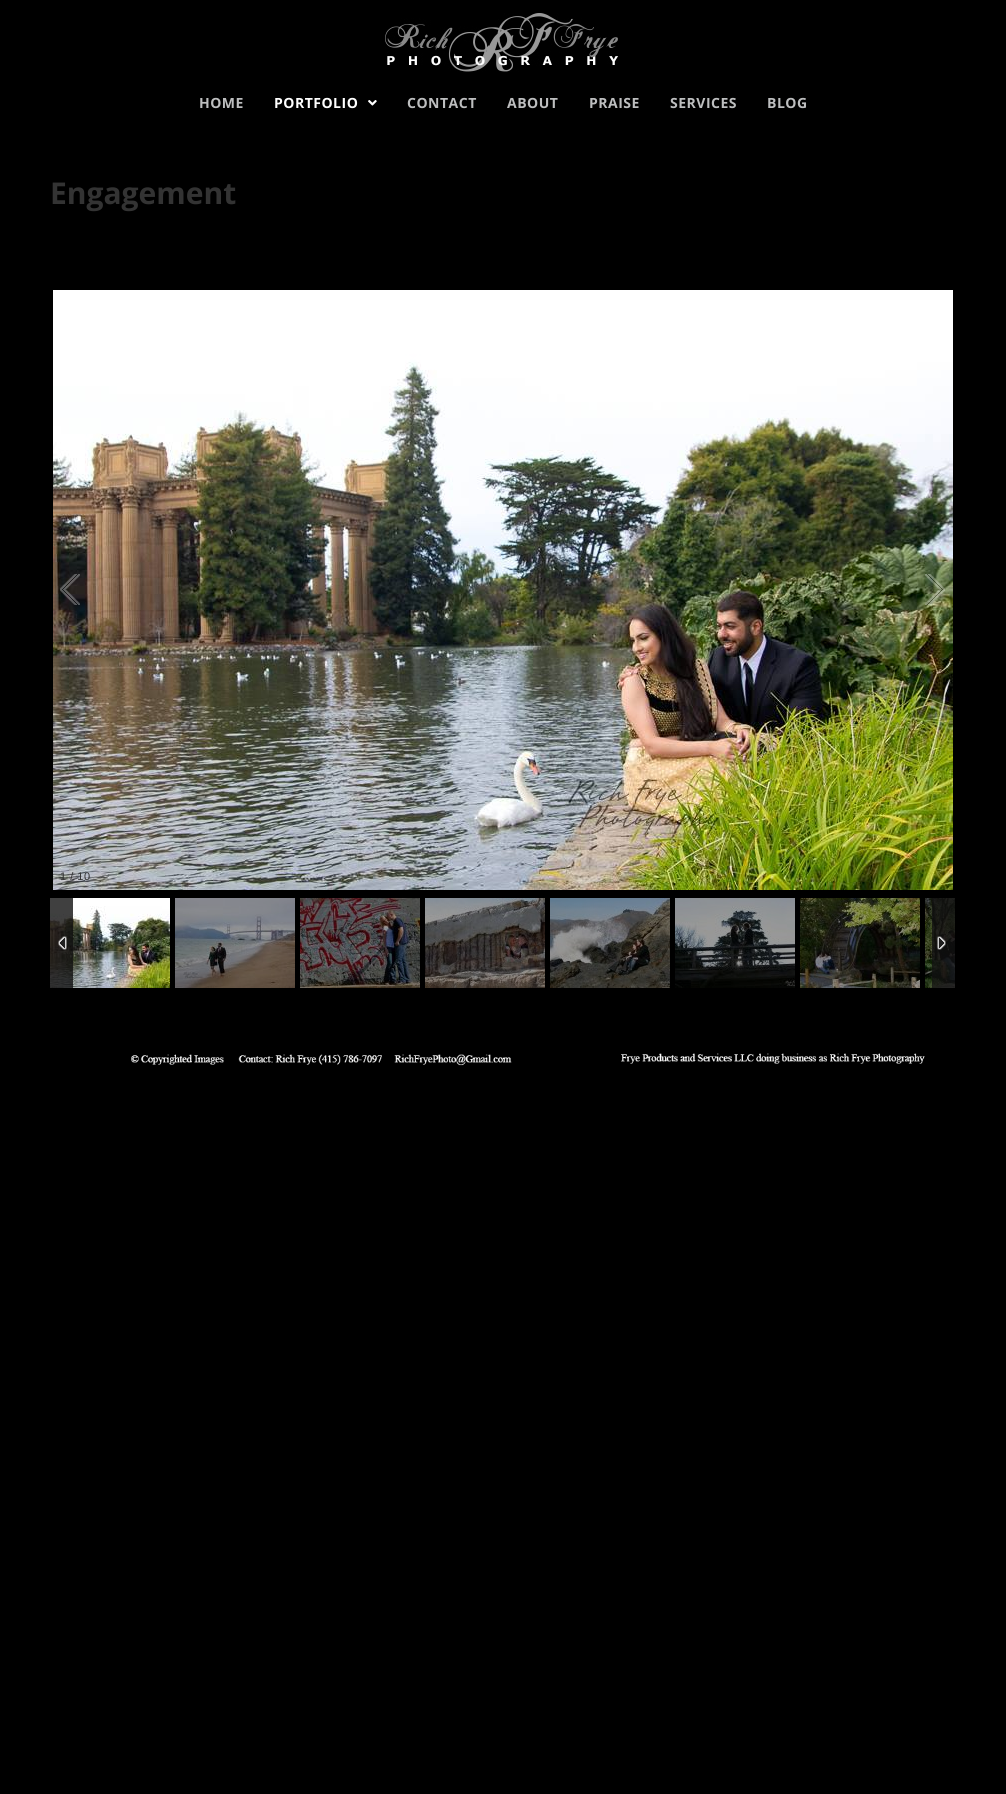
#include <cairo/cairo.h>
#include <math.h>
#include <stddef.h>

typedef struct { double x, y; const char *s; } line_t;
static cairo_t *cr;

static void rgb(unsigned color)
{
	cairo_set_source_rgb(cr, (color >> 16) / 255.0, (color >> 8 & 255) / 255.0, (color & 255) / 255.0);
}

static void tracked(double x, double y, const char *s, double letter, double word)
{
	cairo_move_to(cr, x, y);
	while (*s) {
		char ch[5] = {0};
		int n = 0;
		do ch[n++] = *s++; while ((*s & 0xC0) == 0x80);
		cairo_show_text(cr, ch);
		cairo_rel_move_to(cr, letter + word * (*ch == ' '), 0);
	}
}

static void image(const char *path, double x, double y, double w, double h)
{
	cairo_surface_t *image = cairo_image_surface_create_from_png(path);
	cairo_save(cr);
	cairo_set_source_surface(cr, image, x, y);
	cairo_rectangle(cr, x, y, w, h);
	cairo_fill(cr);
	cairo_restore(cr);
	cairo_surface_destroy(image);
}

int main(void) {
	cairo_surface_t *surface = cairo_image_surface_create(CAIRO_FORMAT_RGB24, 1006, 1794);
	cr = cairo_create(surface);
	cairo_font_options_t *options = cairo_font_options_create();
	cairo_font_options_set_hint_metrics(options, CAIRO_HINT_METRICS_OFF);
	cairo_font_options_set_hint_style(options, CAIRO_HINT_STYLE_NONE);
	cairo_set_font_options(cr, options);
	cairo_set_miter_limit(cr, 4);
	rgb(0x000000);
	cairo_paint(cr);
	image("img/1.png", 385, 13, 234, 59);
	image("img/2.png", 368, 100, 9, 6);
	image("img/3.png", 53, 290, 900, 600);
	image("img/4.png", 60, 574, 20, 31);
	image("img/5.png", 925, 574, 20, 31);
	image("img/6.png", 50, 898, 120, 90);
	image("img/7.png", 175, 898, 120, 90);
	image("img/8.png", 300, 898, 120, 90);
	image("img/9.png", 425, 898, 120, 90);
	image("img/10.png", 550, 898, 120, 90);
	image("img/11.png", 675, 898, 120, 90);
	image("img/12.png", 800, 898, 120, 90);
	image("img/13.png", 925, 898, 30, 90);
	cairo_set_source_rgba(cr, 0.067, 0.067, 0.067, 0.8);
	cairo_rectangle(cr, 50, 898, 23, 90);
	cairo_fill(cr);
	image("img/14.png", 58, 936, 9, 14);
	cairo_rectangle(cr, 932, 898, 23, 90);
	cairo_fill(cr);
	image("img/15.png", 937, 936, 9, 14);
	image("img/16.png", 131, 1054, 381, 12);
	image("img/17.png", 621, 1053, 304, 11);
	cairo_select_font_face(cr, "Open Sans", CAIRO_FONT_SLANT_NORMAL, CAIRO_FONT_WEIGHT_BOLD);
	cairo_set_font_size(cr, 14);
	rgb(0xbdbebf);
	tracked(199, 108, "HOME", 0.5, 0);
	rgb(0xffffff);
	tracked(274, 108, "PORTFOLIO", 0.5, 0);
	rgb(0xbdbebf);
	{
		static const line_t items[] = {
			{407, 108, "CONTACT"},
			{507, 108, "ABOUT"},
			{589, 108, "PRAISE"},
			{670, 108, "SERVICES"},
			{767, 108, "BLOG"},
		};
		for (size_t i = 0; i < sizeof items / sizeof *items; i++) {
			tracked(items[i].x, items[i].y, items[i].s, 0.5, 0);
		}
	}
	cairo_set_font_size(cr, 30);
	rgb(0x333333);
	cairo_move_to(cr, 50, 204);
	cairo_show_text(cr, "Engagement");
	cairo_select_font_face(cr, "Liberation Sans", CAIRO_FONT_SLANT_NORMAL, CAIRO_FONT_WEIGHT_NORMAL);
	cairo_set_font_size(cr, 11);
	tracked(60, 880, "1 / 10", 0.5, 0);
	cairo_surface_write_to_png(surface, "page.png");
	cairo_font_options_destroy(options);
	cairo_destroy(cr);
	cairo_surface_destroy(surface);
	return 0;
}
